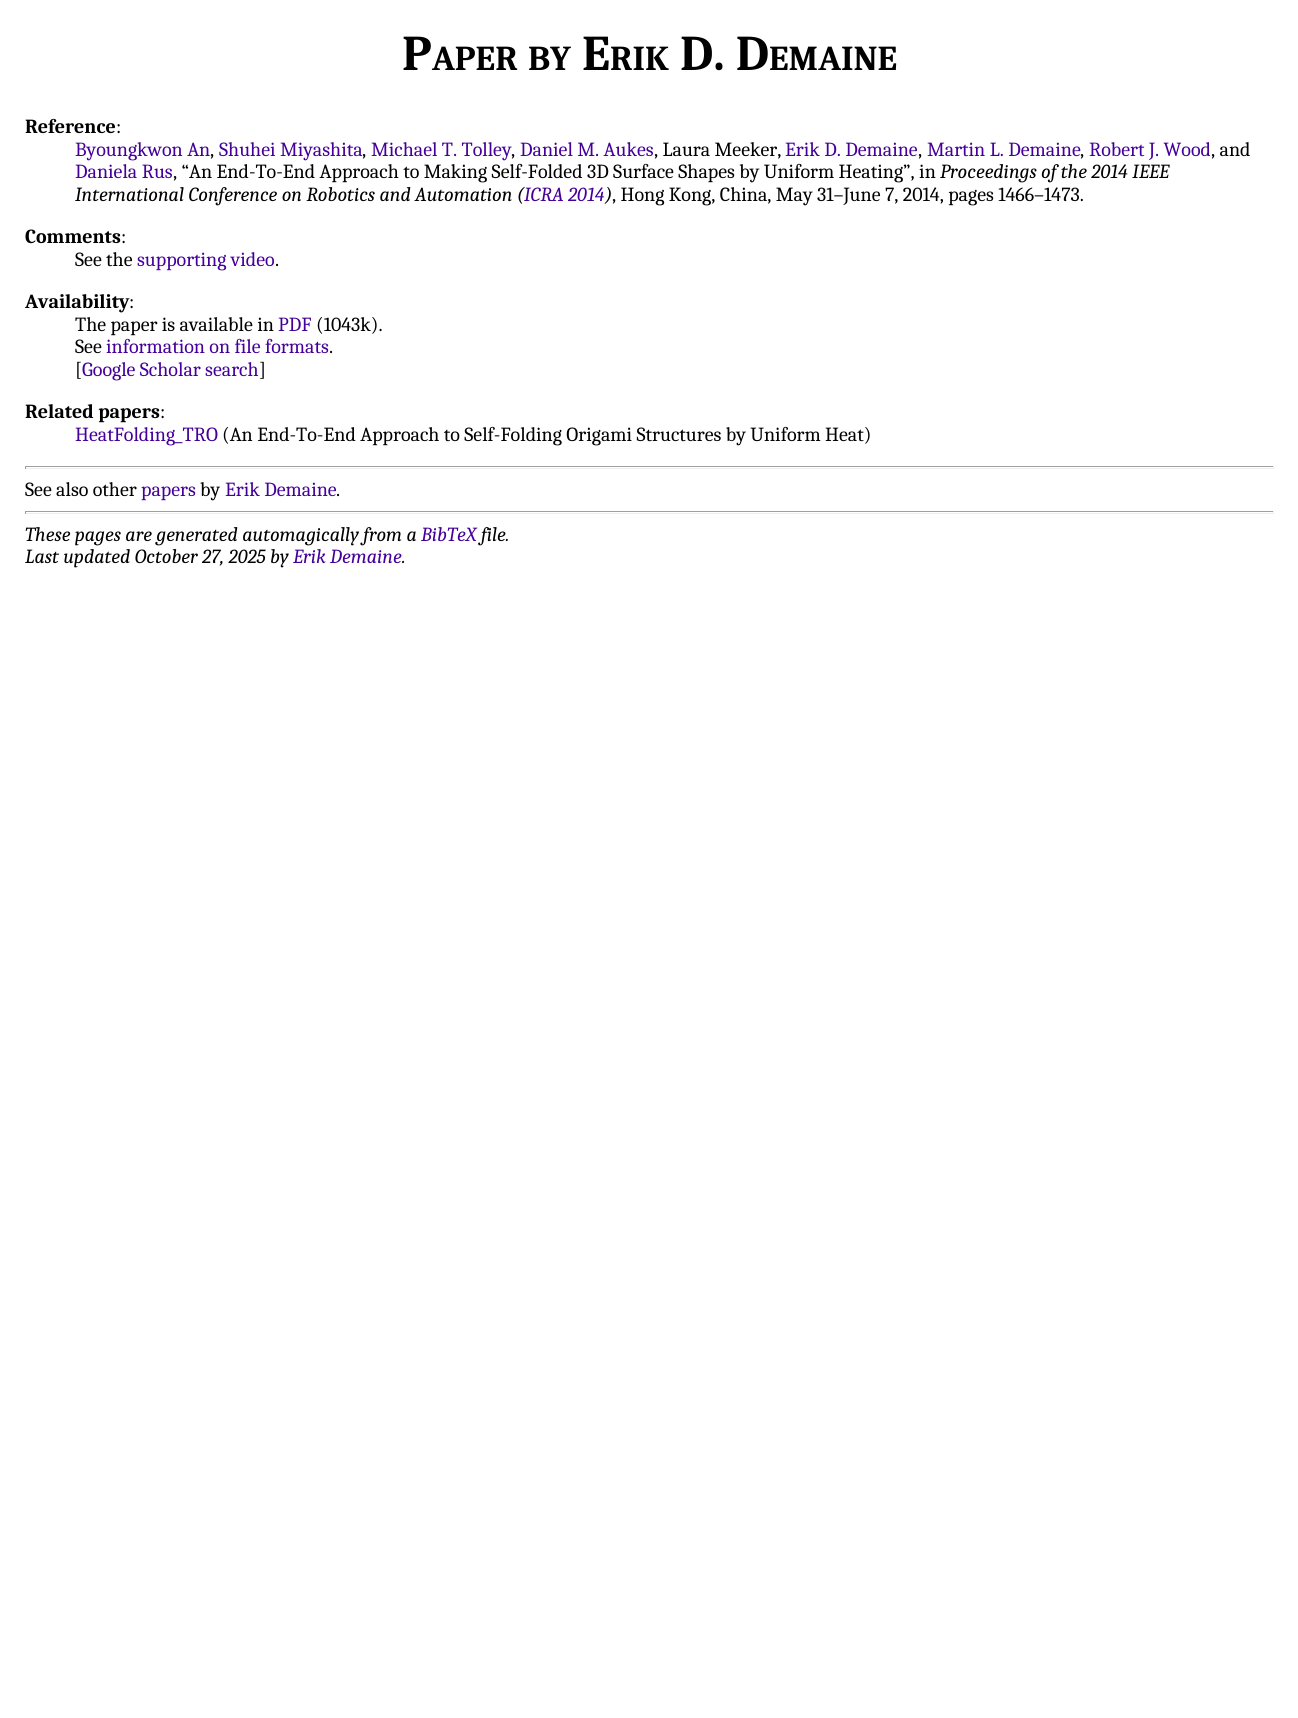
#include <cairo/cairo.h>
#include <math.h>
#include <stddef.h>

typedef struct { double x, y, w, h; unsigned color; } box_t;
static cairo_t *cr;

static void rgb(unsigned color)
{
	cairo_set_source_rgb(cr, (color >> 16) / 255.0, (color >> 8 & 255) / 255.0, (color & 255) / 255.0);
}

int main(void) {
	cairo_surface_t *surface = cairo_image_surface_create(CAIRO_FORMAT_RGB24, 1298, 1718);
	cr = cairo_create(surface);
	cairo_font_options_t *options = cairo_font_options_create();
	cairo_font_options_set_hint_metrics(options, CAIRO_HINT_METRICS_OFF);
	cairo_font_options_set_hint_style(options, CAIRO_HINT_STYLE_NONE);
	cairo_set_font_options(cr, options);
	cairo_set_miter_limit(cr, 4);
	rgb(0xffffff);
	cairo_paint(cr);
	{
		static const box_t items[] = {
			{25, 466, 1249, 1, 0x9f9f9f},
			{1273, 466, 1, 3, 0xeeeeee},
			{25, 468, 1249, 1, 0xeeeeee},
			{25, 466, 1, 3, 0x9f9f9f},
			{25, 511, 1249, 1, 0x9f9f9f},
			{1273, 511, 1, 3, 0xeeeeee},
			{25, 513, 1249, 1, 0xeeeeee},
			{25, 511, 1, 3, 0x9f9f9f},
		};
		for (size_t i = 0; i < sizeof items / sizeof *items; i++) {
			rgb(items[i].color);
			cairo_rectangle(cr, items[i].x, items[i].y, items[i].w, items[i].h);
			cairo_fill(cr);
		}
	}
	cairo_select_font_face(cr, "Caladea", CAIRO_FONT_SLANT_NORMAL, CAIRO_FONT_WEIGHT_BOLD);
	cairo_set_font_size(cr, 50);
	rgb(0x000000);
	cairo_move_to(cr, 402, 70);
	cairo_show_text(cr, "P");
	cairo_set_font_size(cr, 35);
	cairo_move_to(cr, 432, 70);
	cairo_show_text(cr, "APER");
	cairo_move_to(cr, 528, 70);
	cairo_show_text(cr, "BY");
	cairo_set_font_size(cr, 50);
	cairo_move_to(cr, 582, 70);
	cairo_show_text(cr, "E");
	cairo_set_font_size(cr, 35);
	cairo_move_to(cr, 610, 70);
	cairo_show_text(cr, "RIK");
	cairo_set_font_size(cr, 50);
	cairo_move_to(cr, 680, 70);
	cairo_show_text(cr, "D. D");
	cairo_set_font_size(cr, 35);
	cairo_move_to(cr, 769, 70);
	cairo_show_text(cr, "EMAINE");
	cairo_set_font_size(cr, 20);
	cairo_move_to(cr, 25, 133);
	cairo_show_text(cr, "Reference");
	cairo_select_font_face(cr, "Caladea", CAIRO_FONT_SLANT_NORMAL, CAIRO_FONT_WEIGHT_NORMAL);
	cairo_move_to(cr, 116, 133);
	cairo_show_text(cr, ":");
	rgb(0x440099);
	cairo_move_to(cr, 75, 156);
	cairo_show_text(cr, "Byoungkwon An");
	rgb(0x000000);
	cairo_move_to(cr, 210, 156);
	cairo_show_text(cr, ",");
	rgb(0x440099);
	cairo_move_to(cr, 219, 156);
	cairo_show_text(cr, "Shuhei Miyashita");
	rgb(0x000000);
	cairo_move_to(cr, 362, 156);
	cairo_show_text(cr, ",");
	rgb(0x440099);
	cairo_move_to(cr, 371, 156);
	cairo_show_text(cr, "Michael T. Tolley");
	rgb(0x000000);
	cairo_move_to(cr, 511, 156);
	cairo_show_text(cr, ",");
	rgb(0x440099);
	cairo_move_to(cr, 520, 156);
	cairo_show_text(cr, "Daniel M. Aukes");
	rgb(0x000000);
	cairo_move_to(cr, 654, 156);
	cairo_show_text(cr, ", Laura Meeker,");
	rgb(0x440099);
	cairo_move_to(cr, 785, 156);
	cairo_show_text(cr, "Erik D. Demaine");
	rgb(0x000000);
	cairo_move_to(cr, 918, 156);
	cairo_show_text(cr, ",");
	rgb(0x440099);
	cairo_move_to(cr, 927, 156);
	cairo_show_text(cr, "Martin L. Demaine");
	rgb(0x000000);
	cairo_move_to(cr, 1080, 156);
	cairo_show_text(cr, ",");
	rgb(0x440099);
	cairo_move_to(cr, 1089, 156);
	cairo_show_text(cr, "Robert J. Wood");
	rgb(0x000000);
	cairo_move_to(cr, 1211, 156);
	cairo_show_text(cr, ", and");
	rgb(0x440099);
	cairo_move_to(cr, 75, 178);
	cairo_show_text(cr, "Daniela Rus");
	rgb(0x000000);
	cairo_move_to(cr, 173, 178);
	cairo_show_text(cr, ", “An End-To-End Approach to Making Self-Folded 3D Surface Shapes by Uniform Heating”, in");
	cairo_select_font_face(cr, "Caladea", CAIRO_FONT_SLANT_ITALIC, CAIRO_FONT_WEIGHT_NORMAL);
	cairo_move_to(cr, 940, 178);
	cairo_show_text(cr, "Proceedings of the 2014 IEEE");
	cairo_move_to(cr, 75, 201);
	cairo_show_text(cr, "International Conference on Robotics and Automation (");
	rgb(0x440099);
	cairo_move_to(cr, 524, 201);
	cairo_show_text(cr, "ICRA 2014");
	rgb(0x000000);
	cairo_move_to(cr, 605, 201);
	cairo_show_text(cr, ")");
	cairo_select_font_face(cr, "Caladea", CAIRO_FONT_SLANT_NORMAL, CAIRO_FONT_WEIGHT_NORMAL);
	cairo_move_to(cr, 612, 201);
	cairo_show_text(cr, ", Hong Kong, China, May 31–June 7, 2014, pages 1466–1473.");
	cairo_select_font_face(cr, "Caladea", CAIRO_FONT_SLANT_NORMAL, CAIRO_FONT_WEIGHT_BOLD);
	cairo_move_to(cr, 25, 243);
	cairo_show_text(cr, "Comments");
	cairo_select_font_face(cr, "Caladea", CAIRO_FONT_SLANT_NORMAL, CAIRO_FONT_WEIGHT_NORMAL);
	cairo_move_to(cr, 121, 243);
	cairo_show_text(cr, ":");
	cairo_move_to(cr, 75, 266);
	cairo_show_text(cr, "See the");
	rgb(0x440099);
	cairo_move_to(cr, 137, 266);
	cairo_show_text(cr, "supporting video");
	rgb(0x000000);
	cairo_move_to(cr, 275, 266);
	cairo_show_text(cr, ".");
	cairo_select_font_face(cr, "Caladea", CAIRO_FONT_SLANT_NORMAL, CAIRO_FONT_WEIGHT_BOLD);
	cairo_move_to(cr, 25, 308);
	cairo_show_text(cr, "Availability");
	cairo_select_font_face(cr, "Caladea", CAIRO_FONT_SLANT_NORMAL, CAIRO_FONT_WEIGHT_NORMAL);
	cairo_move_to(cr, 129, 308);
	cairo_show_text(cr, ":");
	cairo_move_to(cr, 75, 331);
	cairo_show_text(cr, "The paper is available in");
	rgb(0x440099);
	cairo_move_to(cr, 278, 331);
	cairo_show_text(cr, "PDF");
	rgb(0x000000);
	cairo_move_to(cr, 316, 331);
	cairo_show_text(cr, "(1043k).");
	cairo_move_to(cr, 75, 353);
	cairo_show_text(cr, "See");
	rgb(0x440099);
	cairo_move_to(cr, 106, 353);
	cairo_show_text(cr, "information on file formats");
	rgb(0x000000);
	cairo_move_to(cr, 329, 353);
	cairo_show_text(cr, ".");
	cairo_move_to(cr, 75, 376);
	cairo_show_text(cr, "[");
	rgb(0x440099);
	cairo_move_to(cr, 82, 376);
	cairo_show_text(cr, "Google Scholar search");
	rgb(0x000000);
	cairo_move_to(cr, 259, 376);
	cairo_show_text(cr, "]");
	cairo_select_font_face(cr, "Caladea", CAIRO_FONT_SLANT_NORMAL, CAIRO_FONT_WEIGHT_BOLD);
	cairo_move_to(cr, 25, 418);
	cairo_show_text(cr, "Related papers");
	cairo_select_font_face(cr, "Caladea", CAIRO_FONT_SLANT_NORMAL, CAIRO_FONT_WEIGHT_NORMAL);
	cairo_move_to(cr, 160, 418);
	cairo_show_text(cr, ":");
	rgb(0x440099);
	cairo_move_to(cr, 75, 441);
	cairo_show_text(cr, "HeatFolding_TRO");
	rgb(0x000000);
	cairo_move_to(cr, 222, 441);
	cairo_show_text(cr, "(An End-To-End Approach to Self-Folding Origami Structures by Uniform Heat)");
	cairo_move_to(cr, 25, 496);
	cairo_show_text(cr, "See also other");
	rgb(0x440099);
	cairo_move_to(cr, 141, 496);
	cairo_show_text(cr, "papers");
	rgb(0x000000);
	cairo_move_to(cr, 200, 496);
	cairo_show_text(cr, "by");
	rgb(0x440099);
	cairo_move_to(cr, 225, 496);
	cairo_show_text(cr, "Erik Demaine");
	rgb(0x000000);
	cairo_move_to(cr, 336, 496);
	cairo_show_text(cr, ".");
	cairo_select_font_face(cr, "Caladea", CAIRO_FONT_SLANT_ITALIC, CAIRO_FONT_WEIGHT_NORMAL);
	cairo_move_to(cr, 25, 541);
	cairo_show_text(cr, "These pages are generated automagically from a");
	rgb(0x440099);
	cairo_move_to(cr, 421, 541);
	cairo_show_text(cr, "BibTeX");
	rgb(0x000000);
	cairo_move_to(cr, 481, 541);
	cairo_show_text(cr, "file.");
	cairo_move_to(cr, 25, 563);
	cairo_show_text(cr, "Last updated October 27, 2025 by");
	rgb(0x440099);
	cairo_move_to(cr, 293, 563);
	cairo_show_text(cr, "Erik Demaine");
	rgb(0x000000);
	cairo_move_to(cr, 402, 563);
	cairo_show_text(cr, ".");
	cairo_surface_write_to_png(surface, "page.png");
	cairo_font_options_destroy(options);
	cairo_destroy(cr);
	cairo_surface_destroy(surface);
	return 0;
}
